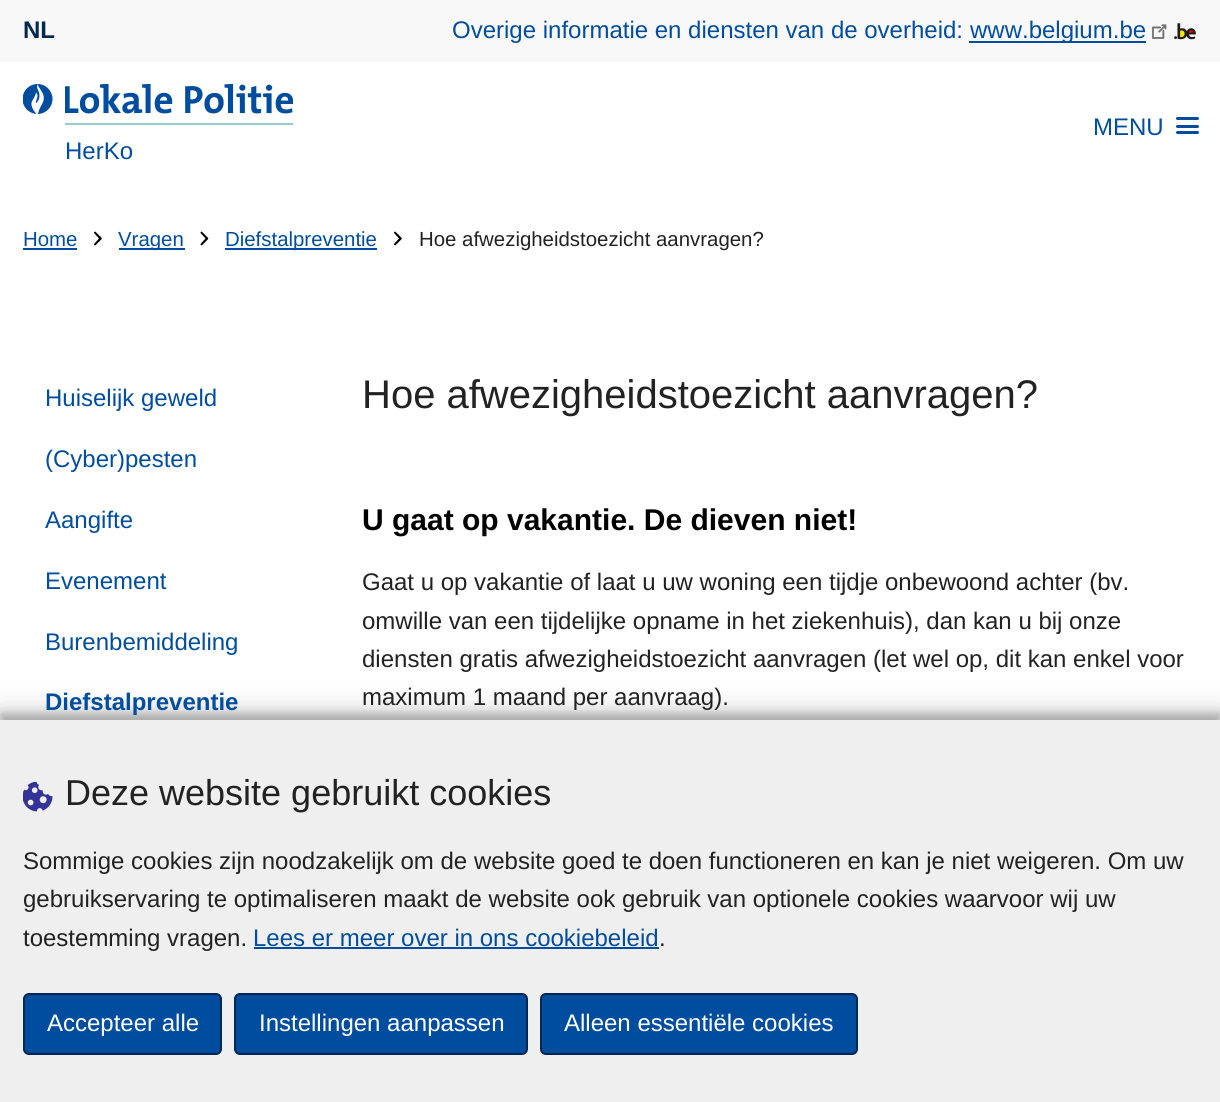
#include <cairo/cairo.h>
#include <math.h>
#include <stddef.h>

typedef struct { double x, y; const char *s; } line_t;
static cairo_t *cr;

static void rgb(unsigned color)
{
	cairo_set_source_rgb(cr, (color >> 16) / 255.0, (color >> 8 & 255) / 255.0, (color & 255) / 255.0);
}

static void rrect(double x, double y, double w, double h, double r)
{
	cairo_new_sub_path(cr);
	cairo_arc(cr, x + w - r, y + h - r, r, 0, M_PI / 2);
	cairo_arc(cr, x + r, y + h - r, r, M_PI / 2, M_PI);
	cairo_arc(cr, x + r, y + r, r, M_PI, 1.5 * M_PI);
	cairo_arc(cr, x + w - r, y + r, r, 1.5 * M_PI, 2 * M_PI);
	cairo_close_path(cr);
}

static void soft_shadow(double x, double y, double w, double h, double r, double blur, double alpha)
{
	cairo_push_group_with_content(cr, CAIRO_CONTENT_ALPHA);
	cairo_set_operator(cr, CAIRO_OPERATOR_SOURCE);
	for (int i = 15; i >= -15 && fmin(w, h) + blur * i / 3 > 0; i -= 2) {
		double e = blur * i / 6;
		cairo_set_source_rgba(cr, 0, 0, 0, alpha * erfc((i - 1) / 8.5) / 2);
		rrect(x - e, y - e, w + 2 * e, h + 2 * e, fmax(0, fmin(r + e + blur * .6, fmin(w, h) / 2 + e)));
		cairo_fill(cr);
	}
	cairo_pattern_t *soft = cairo_pop_group(cr);
	cairo_mask(cr, soft);
	cairo_pattern_destroy(soft);
}

static void image(const char *path, double x, double y, double w, double h)
{
	cairo_surface_t *image = cairo_image_surface_create_from_png(path);
	cairo_save(cr);
	cairo_set_source_surface(cr, image, x, y);
	cairo_rectangle(cr, x, y, w, h);
	cairo_fill(cr);
	cairo_restore(cr);
	cairo_surface_destroy(image);
}

int main(void) {
	cairo_surface_t *surface = cairo_image_surface_create(CAIRO_FORMAT_RGB24, 1220, 1102);
	cr = cairo_create(surface);
	cairo_font_options_t *options = cairo_font_options_create();
	cairo_font_options_set_hint_metrics(options, CAIRO_HINT_METRICS_OFF);
	cairo_font_options_set_hint_style(options, CAIRO_HINT_STYLE_NONE);
	cairo_set_font_options(cr, options);
	cairo_set_miter_limit(cr, 4);
	rgb(0xffffff);
	cairo_paint(cr);
	rgb(0xf8f8f8);
	cairo_rectangle(cr, 0, 0, 1220, 62);
	cairo_fill(cr);
	rgb(0x004d9f);
	cairo_rectangle(cr, 969, 41, 177, 2);
	cairo_fill(cr);
	image("img/1.png", 1151, 24, 16, 15);
	image("img/2.png", 1174, 23, 22, 17);
	rrect(1176, 125, 23, 3, 1.5);
	cairo_fill(cr);
	rrect(1176, 117, 23, 3, 1.5);
	cairo_fill(cr);
	rrect(1176, 131, 23, 3, 1.5);
	cairo_fill(cr);
	image("img/3.png", 23, 84, 30, 30);
	image("img/4.png", 65, 84, 228, 41);
	cairo_rectangle(cr, 23, 248, 54, 2);
	cairo_fill(cr);
	image("img/5.png", 94, 231, 8, 15);
	cairo_rectangle(cr, 119, 248, 66, 2);
	cairo_fill(cr);
	image("img/6.png", 200, 231, 9, 15);
	cairo_rectangle(cr, 225, 248, 152, 2);
	cairo_fill(cr);
	image("img/5.png", 394, 231, 8, 15);
	rgb(0x000000);
	soft_shadow(0, 713, 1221, 382, 0, 4.5, 0.23);
	soft_shadow(0, 713, 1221, 382, 0, 15, 0.19);
	rgb(0xefefef);
	cairo_rectangle(cr, 0, 720, 1220, 382);
	cairo_fill(cr);
	image("img/7.png", 23, 782, 30, 30);
	rgb(0x004d9f);
	cairo_rectangle(cr, 254, 947, 405, 2);
	cairo_fill(cr);
	rrect(24, 994, 197, 60, 5);
	cairo_fill_preserve(cr);
	rgb(0x002853);
	cairo_stroke(cr);
	rgb(0x004d9f);
	rrect(235, 994, 292, 60, 5);
	cairo_fill_preserve(cr);
	rgb(0x002853);
	cairo_stroke(cr);
	rgb(0x004d9f);
	rrect(541, 994, 316, 60, 5);
	cairo_fill_preserve(cr);
	rgb(0x002853);
	cairo_stroke(cr);
	cairo_select_font_face(cr, "Liberation Sans", CAIRO_FONT_SLANT_NORMAL, CAIRO_FONT_WEIGHT_BOLD);
	cairo_set_font_size(cr, 24);
	cairo_move_to(cr, 23, 38);
	cairo_show_text(cr, "NL");
	cairo_select_font_face(cr, "Liberation Sans", CAIRO_FONT_SLANT_NORMAL, CAIRO_FONT_WEIGHT_NORMAL);
	rgb(0x004d9f);
	{
		static const line_t items[] = {
			{452, 38, "Overige informatie en diensten van de overheid:"},
			{970, 38, "www.belgium.be"},
			{1093, 135, "MENU"},
			{65, 159, "HerKo"},
		};
		for (size_t i = 0; i < sizeof items / sizeof *items; i++) {
			cairo_move_to(cr, items[i].x, items[i].y);
			cairo_show_text(cr, items[i].s);
		}
	}
	cairo_set_font_size(cr, 20.4);
	{
		static const line_t items[] = {
			{23, 246, "Home"},
			{118, 246, "Vragen"},
			{225, 246, "Diefstalpreventie"},
		};
		for (size_t i = 0; i < sizeof items / sizeof *items; i++) {
			cairo_move_to(cr, items[i].x, items[i].y);
			cairo_show_text(cr, items[i].s);
		}
	}
	rgb(0x222222);
	cairo_move_to(cr, 419, 246);
	cairo_show_text(cr, "Hoe afwezigheidstoezicht aanvragen?");
	cairo_set_font_size(cr, 24);
	rgb(0x004d9f);
	{
		static const line_t items[] = {
			{45, 406, "Huiselijk geweld"},
			{45, 467, "(Cyber)pesten"},
			{45, 528, "Aangifte"},
			{45, 589, "Evenement"},
			{45, 650, "Burenbemiddeling"},
		};
		for (size_t i = 0; i < sizeof items / sizeof *items; i++) {
			cairo_move_to(cr, items[i].x, items[i].y);
			cairo_show_text(cr, items[i].s);
		}
	}
	cairo_select_font_face(cr, "Liberation Sans", CAIRO_FONT_SLANT_NORMAL, CAIRO_FONT_WEIGHT_BOLD);
	cairo_move_to(cr, 45, 710);
	cairo_show_text(cr, "Diefstalpreventie");
	cairo_select_font_face(cr, "Liberation Sans", CAIRO_FONT_SLANT_NORMAL, CAIRO_FONT_WEIGHT_NORMAL);
	cairo_set_font_size(cr, 40);
	rgb(0x222222);
	cairo_move_to(cr, 362, 408);
	cairo_show_text(cr, "Hoe afwezigheidstoezicht aanvragen?");
	cairo_select_font_face(cr, "Liberation Sans", CAIRO_FONT_SLANT_NORMAL, CAIRO_FONT_WEIGHT_BOLD);
	cairo_set_font_size(cr, 30);
	rgb(0x000000);
	cairo_move_to(cr, 362, 530);
	cairo_show_text(cr, "U gaat op vakantie. De dieven niet!");
	cairo_select_font_face(cr, "Liberation Sans", CAIRO_FONT_SLANT_NORMAL, CAIRO_FONT_WEIGHT_NORMAL);
	cairo_set_font_size(cr, 24);
	rgb(0x222222);
	{
		static const line_t items[] = {
			{362, 590, "Gaat u op vakantie of laat u uw woning een tijdje onbewoond achter (bv."},
			{362, 629, "omwille van een tijdelijke opname in het ziekenhuis), dan kan u bij onze"},
			{362, 667, "diensten gratis afwezigheidstoezicht aanvragen (let wel op, dit kan enkel voor"},
			{362, 705, "maximum 1 maand per aanvraag)."},
		};
		for (size_t i = 0; i < sizeof items / sizeof *items; i++) {
			cairo_move_to(cr, items[i].x, items[i].y);
			cairo_show_text(cr, items[i].s);
		}
	}
	cairo_set_font_size(cr, 36);
	cairo_move_to(cr, 65, 805);
	cairo_show_text(cr, "Deze website gebruikt cookies");
	cairo_set_font_size(cr, 24);
	{
		static const line_t items[] = {
			{23, 869, "Sommige cookies zijn noodzakelijk om de website goed te doen functioneren en kan je niet weigeren. Om uw"},
			{23, 907, "gebruikservaring te optimaliseren maakt de website ook gebruik van optionele cookies waarvoor wij uw"},
			{23, 946, "toestemming vragen."},
		};
		for (size_t i = 0; i < sizeof items / sizeof *items; i++) {
			cairo_move_to(cr, items[i].x, items[i].y);
			cairo_show_text(cr, items[i].s);
		}
	}
	rgb(0x004d9f);
	cairo_move_to(cr, 253, 946);
	cairo_show_text(cr, "Lees er meer over in ons cookiebeleid");
	rgb(0x222222);
	cairo_move_to(cr, 659, 946);
	cairo_show_text(cr, ".");
	rgb(0xffffff);
	{
		static const line_t items[] = {
			{47, 1031, "Accepteer alle"},
			{259, 1031, "Instellingen aanpassen"},
			{564, 1031, "Alleen essentiële cookies"},
		};
		for (size_t i = 0; i < sizeof items / sizeof *items; i++) {
			cairo_move_to(cr, items[i].x, items[i].y);
			cairo_show_text(cr, items[i].s);
		}
	}
	cairo_surface_write_to_png(surface, "page.png");
	cairo_font_options_destroy(options);
	cairo_destroy(cr);
	cairo_surface_destroy(surface);
	return 0;
}
